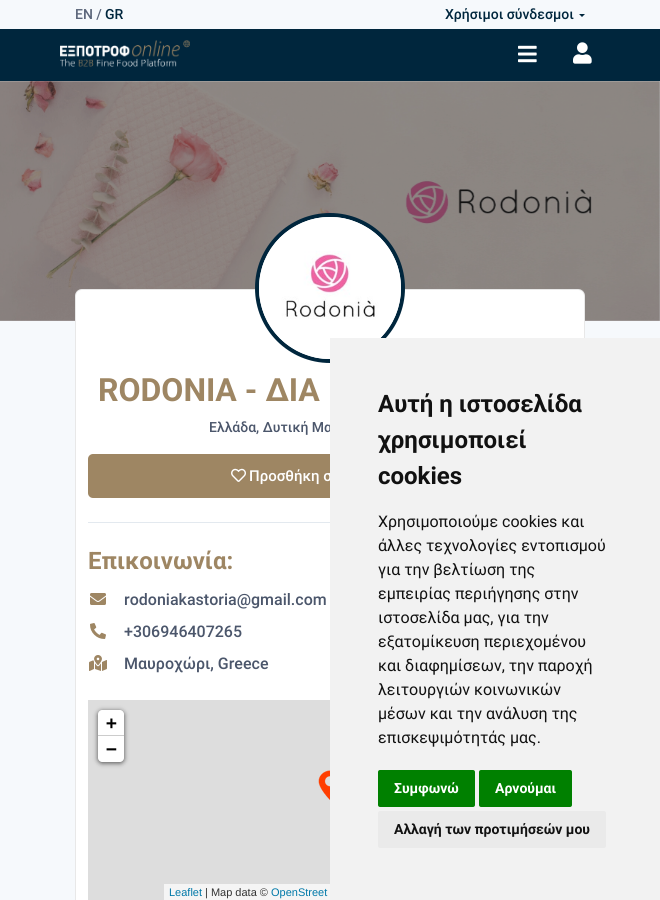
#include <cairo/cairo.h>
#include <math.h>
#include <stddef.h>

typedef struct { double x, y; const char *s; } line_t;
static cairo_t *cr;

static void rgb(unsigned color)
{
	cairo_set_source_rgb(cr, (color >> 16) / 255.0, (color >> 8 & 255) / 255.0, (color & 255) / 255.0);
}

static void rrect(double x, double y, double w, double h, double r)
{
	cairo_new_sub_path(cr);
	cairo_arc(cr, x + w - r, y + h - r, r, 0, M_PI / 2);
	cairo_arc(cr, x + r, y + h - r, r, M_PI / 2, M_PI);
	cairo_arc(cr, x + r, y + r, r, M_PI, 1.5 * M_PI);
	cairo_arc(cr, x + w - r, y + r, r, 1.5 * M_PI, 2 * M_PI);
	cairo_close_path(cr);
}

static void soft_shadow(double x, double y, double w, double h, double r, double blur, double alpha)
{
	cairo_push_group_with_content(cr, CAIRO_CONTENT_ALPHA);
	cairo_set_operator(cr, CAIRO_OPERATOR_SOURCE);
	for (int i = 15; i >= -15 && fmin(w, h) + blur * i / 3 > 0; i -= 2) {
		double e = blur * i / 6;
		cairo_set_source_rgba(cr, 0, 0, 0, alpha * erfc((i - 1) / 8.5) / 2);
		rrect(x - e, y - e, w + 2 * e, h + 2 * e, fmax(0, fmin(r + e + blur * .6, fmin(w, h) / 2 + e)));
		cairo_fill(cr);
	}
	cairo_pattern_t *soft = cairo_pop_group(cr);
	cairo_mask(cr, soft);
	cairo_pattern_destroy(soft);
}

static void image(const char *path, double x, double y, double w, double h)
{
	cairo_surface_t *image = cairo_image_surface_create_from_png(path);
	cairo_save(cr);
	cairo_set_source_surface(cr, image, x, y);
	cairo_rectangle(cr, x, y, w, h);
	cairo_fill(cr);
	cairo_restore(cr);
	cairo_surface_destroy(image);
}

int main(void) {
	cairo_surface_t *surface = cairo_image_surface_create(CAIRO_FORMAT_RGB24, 660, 900);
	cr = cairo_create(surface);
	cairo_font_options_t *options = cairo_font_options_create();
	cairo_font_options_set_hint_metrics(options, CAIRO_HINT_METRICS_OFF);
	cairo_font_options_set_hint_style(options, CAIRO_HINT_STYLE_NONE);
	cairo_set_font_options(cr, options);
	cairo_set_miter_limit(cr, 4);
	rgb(0xf6f9fc);
	cairo_paint(cr);
	rgb(0x00263d);
	cairo_new_path(cr);
	cairo_move_to(cr, 579, 14);
	cairo_line_to(cr, 585, 14);
	cairo_line_to(cr, 582, 17);
	cairo_close_path(cr);
	cairo_fill(cr);
	cairo_rectangle(cr, 0, 29, 660, 52);
	cairo_fill(cr);
	image("img/1.png", 60, 40, 130, 27);
	image("img/2.png", 518, 45, 19, 18);
	image("img/3.png", 573, 42, 19, 22);
	image("img/4.png", 0, 81, 660, 240);
	rgb(0xffffff);
	rrect(75, 289, 510, 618, 7);
	cairo_fill(cr);
	rrect(75.5, 289.5, 509, 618, 6.5);
	cairo_set_source_rgba(cr, 0, 0, 0, 0.09);
	cairo_set_line_width(cr, 1);
	cairo_stroke(cr);
	rgb(0xe3e9ef);
	cairo_rectangle(cr, 88, 522, 242, 1);
	cairo_fill(cr);
	rgb(0xffffff);
	cairo_arc(cr, 330, 288, 73, 0, 2 * M_PI);
	cairo_fill_preserve(cr);
	rgb(0x00263d);
	cairo_set_line_width(cr, 4);
	cairo_stroke(cr);
	image("img/5.png", 259, 217, 142, 142);
	rgb(0x9e8663);
	rrect(88, 454, 484, 44, 5);
	cairo_fill(cr);
	image("img/6.png", 231, 468, 15, 14);
	image("img/7.png", 90, 593, 16, 12);
	image("img/8.png", 90, 623, 16, 16);
	image("img/9.png", 89, 655, 18, 16);
	rgb(0xdddddd);
	cairo_rectangle(cr, 88, 700, 242, 200);
	cairo_fill(cr);
	rgb(0x000000);
	soft_shadow(98, 711, 26, 52, 4, 2.5, 0.65);
	rgb(0xffffff);
	cairo_new_path(cr);
	cairo_move_to(cr, 102, 710);
	cairo_line_to(cr, 120, 710);
	cairo_curve_to(cr, 122, 710, 124, 712, 124, 714);
	cairo_line_to(cr, 124, 736);
	cairo_line_to(cr, 98, 736);
	cairo_line_to(cr, 98, 714);
	cairo_curve_to(cr, 98, 712, 100, 710, 102, 710);
	cairo_close_path(cr);
	cairo_fill(cr);
	rgb(0xcccccc);
	cairo_rectangle(cr, 98, 735, 26, 1);
	cairo_fill(cr);
	rgb(0xffffff);
	cairo_new_path(cr);
	cairo_move_to(cr, 98, 736);
	cairo_line_to(cr, 124, 736);
	cairo_line_to(cr, 124, 758);
	cairo_curve_to(cr, 124, 760, 122, 762, 120, 762);
	cairo_line_to(cr, 102, 762);
	cairo_curve_to(cr, 100, 762, 98, 760, 98, 758);
	cairo_close_path(cr);
	cairo_fill(cr);
	rgb(0xf5f5f5);
	cairo_rectangle(cr, 164, 884, 166, 16);
	cairo_fill(cr);
	image("img/10.png", 318, 770, 12, 30);
	cairo_select_font_face(cr, "Roboto Medium", CAIRO_FONT_SLANT_NORMAL, CAIRO_FONT_WEIGHT_NORMAL);
	cairo_set_font_size(cr, 14);
	rgb(0x5c667a);
	cairo_move_to(cr, 75, 19);
	cairo_show_text(cr, "EN /");
	rgb(0x00263d);
	cairo_move_to(cr, 105, 19);
	cairo_show_text(cr, "GR");
	cairo_move_to(cr, 445, 19);
	cairo_show_text(cr, "Χρήσιμοι σύνδεσμοι");
	cairo_select_font_face(cr, "Roboto", CAIRO_FONT_SLANT_NORMAL, CAIRO_FONT_WEIGHT_BOLD);
	cairo_set_font_size(cr, 32);
	rgb(0x9e8663);
	cairo_move_to(cr, 98, 401);
	cairo_show_text(cr, "RODONIA - ΔΙΑ");
	cairo_select_font_face(cr, "Roboto Medium", CAIRO_FONT_SLANT_NORMAL, CAIRO_FONT_WEIGHT_NORMAL);
	cairo_set_font_size(cr, 14);
	rgb(0x4b566b);
	cairo_move_to(cr, 209, 432);
	cairo_show_text(cr, "Ελλάδα, Δυτική Μα");
	cairo_set_font_size(cr, 15);
	rgb(0xffffff);
	cairo_move_to(cr, 249, 481);
	cairo_show_text(cr, "Προσθήκη σ");
	cairo_select_font_face(cr, "Roboto", CAIRO_FONT_SLANT_NORMAL, CAIRO_FONT_WEIGHT_BOLD);
	cairo_set_font_size(cr, 24);
	rgb(0x9e8663);
	cairo_move_to(cr, 88, 569);
	cairo_show_text(cr, "Επικοινωνία:");
	cairo_select_font_face(cr, "Roboto Medium", CAIRO_FONT_SLANT_NORMAL, CAIRO_FONT_WEIGHT_NORMAL);
	cairo_set_font_size(cr, 16);
	rgb(0x4b566b);
	{
		static const line_t items[] = {
			{124, 605, "rodoniakastoria@gmail.com"},
			{124, 637, "+306946407265"},
			{124, 669, "Μαυροχώρι, Greece"},
		};
		for (size_t i = 0; i < sizeof items / sizeof *items; i++) {
			cairo_move_to(cr, items[i].x, items[i].y);
			cairo_show_text(cr, items[i].s);
		}
	}
	cairo_select_font_face(cr, "DejaVu Sans Mono", CAIRO_FONT_SLANT_NORMAL, CAIRO_FONT_WEIGHT_BOLD);
	cairo_set_font_size(cr, 18);
	rgb(0x000000);
	cairo_move_to(cr, 106, 729);
	cairo_show_text(cr, "+");
	cairo_move_to(cr, 106, 755);
	cairo_show_text(cr, "−");
	cairo_select_font_face(cr, "Liberation Sans", CAIRO_FONT_SLANT_NORMAL, CAIRO_FONT_WEIGHT_NORMAL);
	cairo_set_font_size(cr, 11);
	rgb(0x0078a8);
	cairo_move_to(cr, 169, 896);
	cairo_show_text(cr, "Leaflet");
	rgb(0x333333);
	cairo_move_to(cr, 205, 896);
	cairo_show_text(cr, "| Map data ©");
	rgb(0x0078a8);
	cairo_move_to(cr, 271, 896);
	cairo_show_text(cr, "OpenStreet");
	rgb(0xf2f2f2);
	cairo_rectangle(cr, 330, 338, 330, 562);
	cairo_fill(cr);
	cairo_select_font_face(cr, "Roboto", CAIRO_FONT_SLANT_NORMAL, CAIRO_FONT_WEIGHT_BOLD);
	cairo_set_font_size(cr, 24);
	rgb(0x111111);
	{
		static const line_t items[] = {
			{378, 412, "Αυτή η ιστοσελίδα"},
			{378, 448, "χρησιμοποιεί"},
			{378, 484, "cookies"},
		};
		for (size_t i = 0; i < sizeof items / sizeof *items; i++) {
			cairo_move_to(cr, items[i].x, items[i].y);
			cairo_show_text(cr, items[i].s);
		}
	}
	cairo_select_font_face(cr, "Roboto", CAIRO_FONT_SLANT_NORMAL, CAIRO_FONT_WEIGHT_NORMAL);
	cairo_set_font_size(cr, 16);
	{
		static const line_t items[] = {
			{378, 527, "Χρησιμοποιούμε cookies και"},
			{378, 551, "άλλες τεχνολογίες εντοπισμού"},
			{378, 575, "για την βελτίωση της"},
			{378, 599, "εμπειρίας περιήγησης στην"},
			{378, 623, "ιστοσελίδα μας, για την"},
			{378, 647, "εξατομίκευση περιεχομένου"},
			{378, 671, "και διαφημίσεων, την παροχή"},
			{378, 695, "λειτουργιών κοινωνικών"},
			{378, 719, "μέσων και την ανάλυση της"},
			{378, 743, "επισκεψιμότητάς μας."},
		};
		for (size_t i = 0; i < sizeof items / sizeof *items; i++) {
			cairo_move_to(cr, items[i].x, items[i].y);
			cairo_show_text(cr, items[i].s);
		}
	}
	rgb(0x008000);
	rrect(378, 770, 97, 37, 2);
	cairo_fill(cr);
	cairo_select_font_face(cr, "Roboto", CAIRO_FONT_SLANT_NORMAL, CAIRO_FONT_WEIGHT_BOLD);
	cairo_set_font_size(cr, 14);
	rgb(0xffffff);
	cairo_move_to(cr, 394, 793);
	cairo_show_text(cr, "Συμφωνώ");
	rgb(0x008000);
	rrect(479, 770, 93, 37, 2);
	cairo_fill(cr);
	rgb(0xffffff);
	cairo_move_to(cr, 495, 793);
	cairo_show_text(cr, "Αρνούμαι");
	rgb(0xeaeaea);
	rrect(378, 811, 228, 37, 2);
	cairo_fill(cr);
	rgb(0x111111);
	cairo_move_to(cr, 394, 834);
	cairo_show_text(cr, "Αλλαγή των προτιμήσεών μου");
	cairo_surface_write_to_png(surface, "page.png");
	cairo_font_options_destroy(options);
	cairo_destroy(cr);
	cairo_surface_destroy(surface);
	return 0;
}
